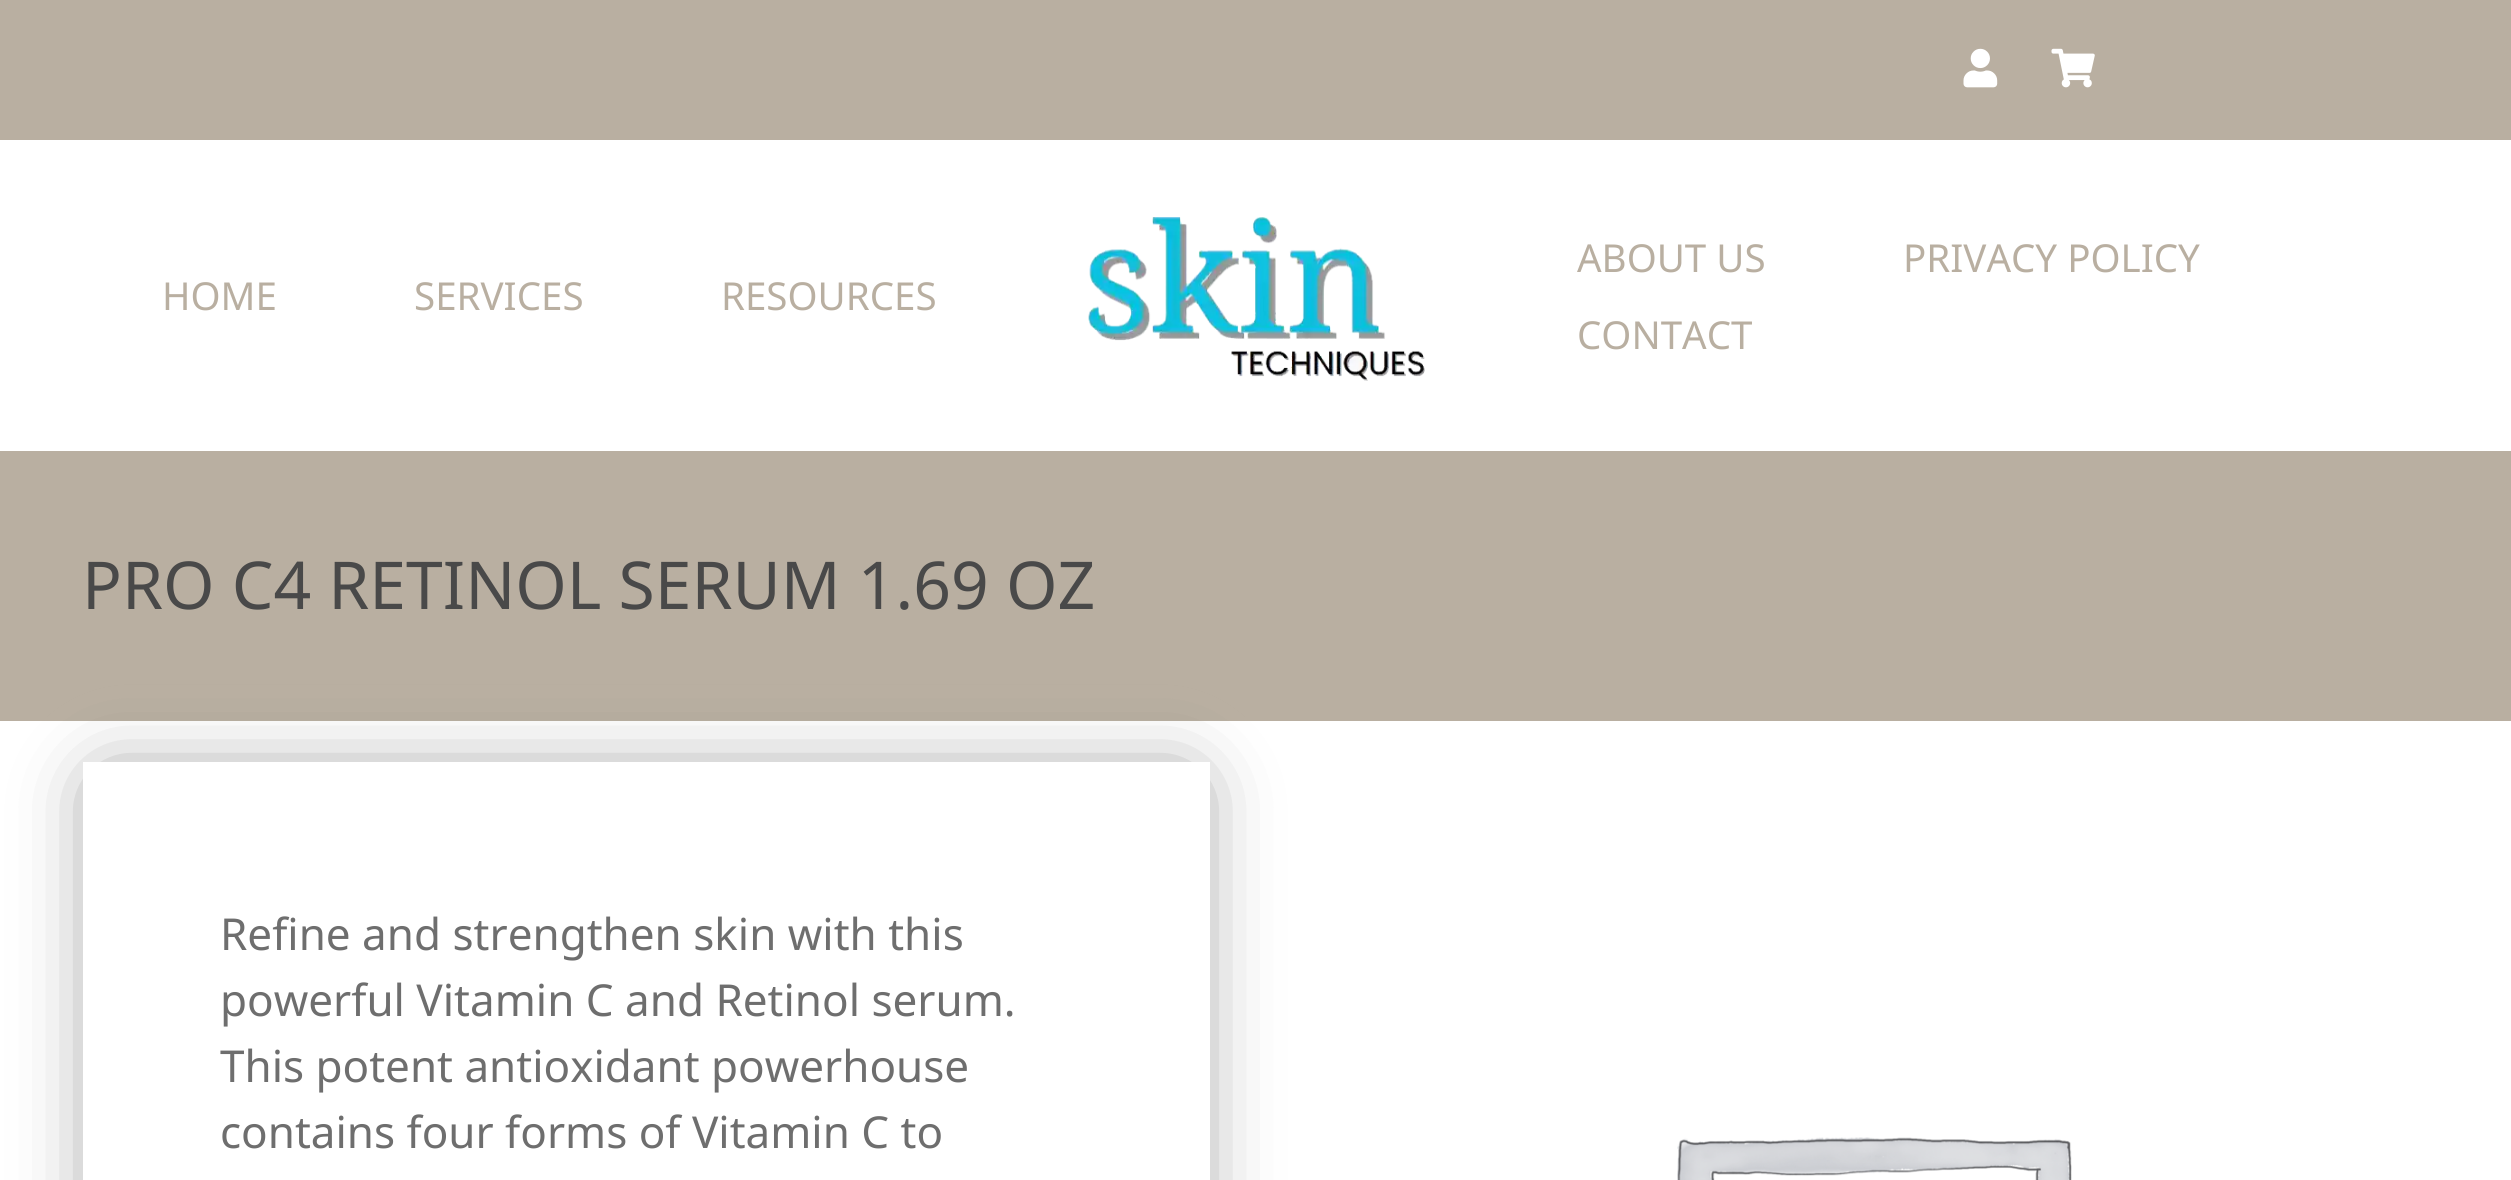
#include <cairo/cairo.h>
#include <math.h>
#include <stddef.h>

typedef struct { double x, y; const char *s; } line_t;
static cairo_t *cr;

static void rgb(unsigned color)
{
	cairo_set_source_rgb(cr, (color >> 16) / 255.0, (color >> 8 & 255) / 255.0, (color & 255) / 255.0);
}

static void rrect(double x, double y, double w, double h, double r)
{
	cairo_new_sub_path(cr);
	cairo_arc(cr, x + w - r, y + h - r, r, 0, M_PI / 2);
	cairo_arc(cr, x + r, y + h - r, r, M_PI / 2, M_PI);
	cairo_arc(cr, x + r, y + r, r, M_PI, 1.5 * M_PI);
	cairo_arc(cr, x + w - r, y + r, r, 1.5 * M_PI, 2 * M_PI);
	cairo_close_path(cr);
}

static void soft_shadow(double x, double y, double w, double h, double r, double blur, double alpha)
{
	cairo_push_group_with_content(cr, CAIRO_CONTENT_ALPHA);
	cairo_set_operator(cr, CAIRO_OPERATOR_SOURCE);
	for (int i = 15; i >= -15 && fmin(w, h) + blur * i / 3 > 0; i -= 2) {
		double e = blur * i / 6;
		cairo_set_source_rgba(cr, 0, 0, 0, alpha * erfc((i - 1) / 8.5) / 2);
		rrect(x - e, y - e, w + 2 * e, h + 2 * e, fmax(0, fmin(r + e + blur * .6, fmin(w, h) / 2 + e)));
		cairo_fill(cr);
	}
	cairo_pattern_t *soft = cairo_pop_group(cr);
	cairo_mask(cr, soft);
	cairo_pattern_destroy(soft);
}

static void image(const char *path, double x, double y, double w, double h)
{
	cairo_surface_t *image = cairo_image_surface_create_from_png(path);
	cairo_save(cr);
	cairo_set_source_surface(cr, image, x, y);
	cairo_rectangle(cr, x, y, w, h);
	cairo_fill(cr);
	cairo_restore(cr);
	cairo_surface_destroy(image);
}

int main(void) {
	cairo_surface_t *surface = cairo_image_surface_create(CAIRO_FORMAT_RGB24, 2511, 1180);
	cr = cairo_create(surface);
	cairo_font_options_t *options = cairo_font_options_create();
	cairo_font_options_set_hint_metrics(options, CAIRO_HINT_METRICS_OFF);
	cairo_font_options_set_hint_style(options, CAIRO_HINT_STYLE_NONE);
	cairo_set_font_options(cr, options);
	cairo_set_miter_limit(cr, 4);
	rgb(0xffffff);
	cairo_paint(cr);
	rgb(0xb9afa1);
	cairo_rectangle(cr, 0, 0, 2511, 140);
	cairo_fill(cr);
	image("img/1.png", 1963, 48, 35, 40);
	image("img/2.png", 2051, 48, 44, 40);
	image("img/3.png", 1088, 217, 337, 164);
	cairo_rectangle(cr, 0, 451, 2511, 270);
	cairo_fill(cr);
	cairo_save(cr);
	cairo_set_fill_rule(cr, CAIRO_FILL_RULE_EVEN_ODD);
	cairo_new_path(cr);
	cairo_move_to(cr, 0, 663);
	cairo_line_to(cr, 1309, 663);
	cairo_line_to(cr, 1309, 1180);
	cairo_line_to(cr, 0, 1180);
	cairo_close_path(cr);
	cairo_move_to(cr, 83, 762);
	cairo_line_to(cr, 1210, 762);
	cairo_line_to(cr, 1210, 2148);
	cairo_line_to(cr, 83, 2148);
	cairo_close_path(cr);
	cairo_clip(cr);
	rgb(0x6e6e6e);
	soft_shadow(107, 787, 1078, 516, 0, 41, 1);
	cairo_restore(cr);
	image("img/4.png", 1677, 1137, 395, 43);
	cairo_select_font_face(cr, "Noto Sans", CAIRO_FONT_SLANT_NORMAL, CAIRO_FONT_WEIGHT_NORMAL);
	cairo_set_font_size(cr, 38.5);
	{
		static const line_t items[] = {
			{162, 310, "HOME"},
			{414, 310, "SERVICES"},
			{721, 310, "RESOURCES"},
			{1577, 272, "ABOUT US"},
			{1903, 272, "PRIVACY POLICY"},
			{1577, 349, "CONTACT"},
		};
		for (size_t i = 0; i < sizeof items / sizeof *items; i++) {
			cairo_move_to(cr, items[i].x, items[i].y);
			cairo_show_text(cr, items[i].s);
		}
	}
	cairo_set_font_size(cr, 66);
	rgb(0x494949);
	cairo_move_to(cr, 82, 609);
	cairo_show_text(cr, "PRO C4 RETINOL SERUM 1.69 OZ");
	cairo_set_font_size(cr, 44);
	rgb(0x6e6e6e);
	{
		static const line_t items[] = {
			{220, 950, "Refine and strengthen skin with this"},
			{220, 1016, "powerful Vitamin C and Retinol serum."},
			{220, 1082, "This potent antioxidant powerhouse"},
			{220, 1148, "contains four forms of Vitamin C to"},
		};
		for (size_t i = 0; i < sizeof items / sizeof *items; i++) {
			cairo_move_to(cr, items[i].x, items[i].y);
			cairo_show_text(cr, items[i].s);
		}
	}
	cairo_surface_write_to_png(surface, "page.png");
	cairo_font_options_destroy(options);
	cairo_destroy(cr);
	cairo_surface_destroy(surface);
	return 0;
}
